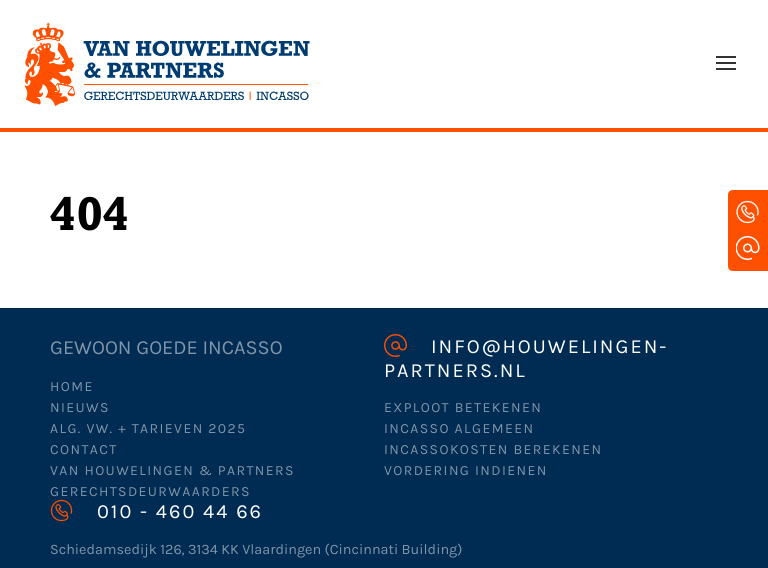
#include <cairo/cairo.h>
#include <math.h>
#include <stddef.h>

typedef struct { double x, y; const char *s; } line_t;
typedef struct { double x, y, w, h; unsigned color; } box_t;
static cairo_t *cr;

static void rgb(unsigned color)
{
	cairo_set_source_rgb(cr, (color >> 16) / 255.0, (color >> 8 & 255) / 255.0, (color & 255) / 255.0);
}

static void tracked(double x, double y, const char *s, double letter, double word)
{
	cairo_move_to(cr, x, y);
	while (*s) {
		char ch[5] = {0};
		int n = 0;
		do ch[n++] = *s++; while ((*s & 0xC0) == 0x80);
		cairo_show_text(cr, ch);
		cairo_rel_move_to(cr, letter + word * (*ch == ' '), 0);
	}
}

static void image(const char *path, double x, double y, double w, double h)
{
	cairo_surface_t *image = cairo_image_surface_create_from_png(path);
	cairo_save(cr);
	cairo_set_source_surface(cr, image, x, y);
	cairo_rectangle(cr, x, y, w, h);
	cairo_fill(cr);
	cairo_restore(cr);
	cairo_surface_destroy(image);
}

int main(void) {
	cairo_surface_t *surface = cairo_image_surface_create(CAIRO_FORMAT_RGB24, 768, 568);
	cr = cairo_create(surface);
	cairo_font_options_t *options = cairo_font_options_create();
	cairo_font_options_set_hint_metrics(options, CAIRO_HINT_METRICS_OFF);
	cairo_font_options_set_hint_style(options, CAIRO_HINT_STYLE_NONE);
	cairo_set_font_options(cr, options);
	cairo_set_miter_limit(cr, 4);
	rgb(0xffffff);
	cairo_paint(cr);
	rgb(0xfe5000);
	cairo_rectangle(cr, 0, 128, 768, 4);
	cairo_fill(cr);
	image("img/1.png", 24, 22, 286, 84);
	{
		static const box_t items[] = {
			{716, 56, 20, 2, 0x333333},
			{716, 62, 20, 2, 0x333333},
			{716, 68, 20, 2, 0x333333},
		};
		for (size_t i = 0; i < sizeof items / sizeof *items; i++) {
			rgb(items[i].color);
			cairo_rectangle(cr, items[i].x, items[i].y, items[i].w, items[i].h);
			cairo_fill(cr);
		}
	}
	rgb(0xfe5000);
	cairo_new_path(cr);
	cairo_move_to(cr, 733, 190);
	cairo_line_to(cr, 768, 190);
	cairo_line_to(cr, 768, 271);
	cairo_line_to(cr, 733, 271);
	cairo_curve_to(cr, 730, 271, 728, 269, 728, 266);
	cairo_line_to(cr, 728, 195);
	cairo_curve_to(cr, 728, 192, 730, 190, 733, 190);
	cairo_close_path(cr);
	cairo_fill(cr);
	image("img/2.png", 736, 200, 23, 24);
	image("img/3.png", 736, 236, 24, 24);
	rgb(0x002b52);
	cairo_rectangle(cr, 0, 308, 768, 260);
	cairo_fill(cr);
	image("img/4.png", 384, 334, 23, 23);
	image("img/5.png", 50, 499, 23, 23);
	cairo_select_font_face(cr, "Rockwell", CAIRO_FONT_SLANT_NORMAL, CAIRO_FONT_WEIGHT_BOLD);
	cairo_set_font_size(cr, 48);
	rgb(0x000000);
	cairo_move_to(cr, 50, 230);
	cairo_show_text(cr, "404");
	cairo_select_font_face(cr, "Karla", CAIRO_FONT_SLANT_NORMAL, CAIRO_FONT_WEIGHT_NORMAL);
	cairo_set_font_size(cr, 20);
	rgb(0x8095a9);
	cairo_move_to(cr, 50, 354);
	cairo_show_text(cr, "GEWOON GOEDE INCASSO");
	cairo_set_font_size(cr, 14);
	{
		static const line_t items[] = {
			{50, 391, "HOME"},
			{50, 412, "NIEUWS"},
			{50, 433, "ALG. VW. + TARIEVEN 2025"},
			{50, 454, "CONTACT"},
			{50, 475, "VAN HOUWELINGEN & PARTNERS"},
			{50, 496, "GERECHTSDEURWAARDERS"},
		};
		for (size_t i = 0; i < sizeof items / sizeof *items; i++) {
			tracked(items[i].x, items[i].y, items[i].s, 1.4, 0);
		}
	}
	cairo_set_font_size(cr, 20);
	rgb(0xffffff);
	tracked(431, 353, "INFO@HOUWELINGEN-", 2, 0);
	tracked(384, 377, "PARTNERS.NL", 2, 0);
	cairo_set_font_size(cr, 14);
	rgb(0x8095a9);
	{
		static const line_t items[] = {
			{384, 412, "EXPLOOT BETEKENEN"},
			{384, 433, "INCASSO ALGEMEEN"},
			{384, 454, "INCASSOKOSTEN BEREKENEN"},
			{384, 475, "VORDERING INDIENEN"},
		};
		for (size_t i = 0; i < sizeof items / sizeof *items; i++) {
			tracked(items[i].x, items[i].y, items[i].s, 1.4, 0);
		}
	}
	cairo_set_font_size(cr, 20);
	rgb(0xffffff);
	tracked(97, 518, "010 - 460 44 66", 2, 0);
	cairo_set_font_size(cr, 14.4);
	rgb(0x8095a9);
	cairo_move_to(cr, 50, 554);
	cairo_show_text(cr, "Schiedamsedijk 126, 3134 KK Vlaardingen (Cincinnati Building)");
	cairo_surface_write_to_png(surface, "page.png");
	cairo_font_options_destroy(options);
	cairo_destroy(cr);
	cairo_surface_destroy(surface);
	return 0;
}
